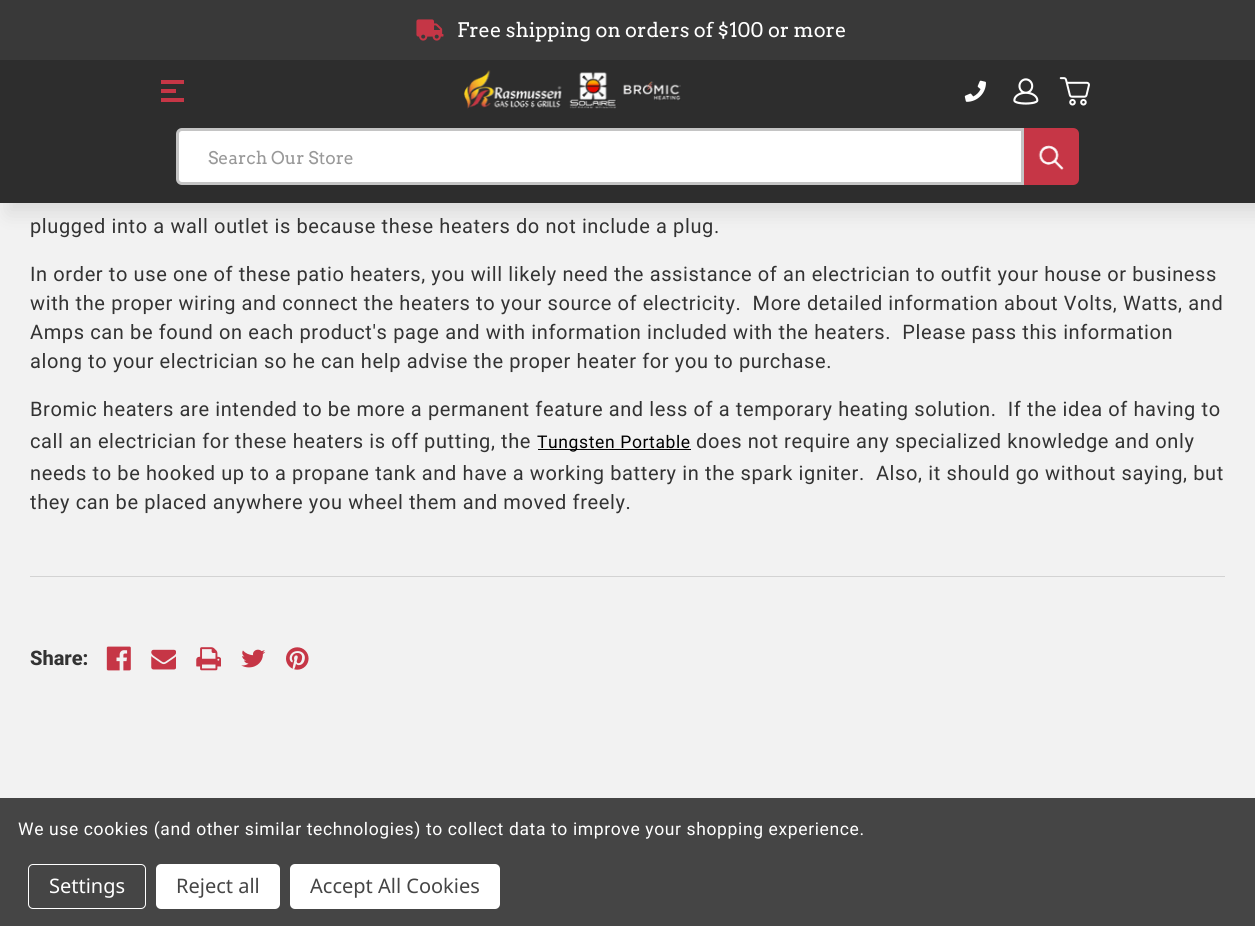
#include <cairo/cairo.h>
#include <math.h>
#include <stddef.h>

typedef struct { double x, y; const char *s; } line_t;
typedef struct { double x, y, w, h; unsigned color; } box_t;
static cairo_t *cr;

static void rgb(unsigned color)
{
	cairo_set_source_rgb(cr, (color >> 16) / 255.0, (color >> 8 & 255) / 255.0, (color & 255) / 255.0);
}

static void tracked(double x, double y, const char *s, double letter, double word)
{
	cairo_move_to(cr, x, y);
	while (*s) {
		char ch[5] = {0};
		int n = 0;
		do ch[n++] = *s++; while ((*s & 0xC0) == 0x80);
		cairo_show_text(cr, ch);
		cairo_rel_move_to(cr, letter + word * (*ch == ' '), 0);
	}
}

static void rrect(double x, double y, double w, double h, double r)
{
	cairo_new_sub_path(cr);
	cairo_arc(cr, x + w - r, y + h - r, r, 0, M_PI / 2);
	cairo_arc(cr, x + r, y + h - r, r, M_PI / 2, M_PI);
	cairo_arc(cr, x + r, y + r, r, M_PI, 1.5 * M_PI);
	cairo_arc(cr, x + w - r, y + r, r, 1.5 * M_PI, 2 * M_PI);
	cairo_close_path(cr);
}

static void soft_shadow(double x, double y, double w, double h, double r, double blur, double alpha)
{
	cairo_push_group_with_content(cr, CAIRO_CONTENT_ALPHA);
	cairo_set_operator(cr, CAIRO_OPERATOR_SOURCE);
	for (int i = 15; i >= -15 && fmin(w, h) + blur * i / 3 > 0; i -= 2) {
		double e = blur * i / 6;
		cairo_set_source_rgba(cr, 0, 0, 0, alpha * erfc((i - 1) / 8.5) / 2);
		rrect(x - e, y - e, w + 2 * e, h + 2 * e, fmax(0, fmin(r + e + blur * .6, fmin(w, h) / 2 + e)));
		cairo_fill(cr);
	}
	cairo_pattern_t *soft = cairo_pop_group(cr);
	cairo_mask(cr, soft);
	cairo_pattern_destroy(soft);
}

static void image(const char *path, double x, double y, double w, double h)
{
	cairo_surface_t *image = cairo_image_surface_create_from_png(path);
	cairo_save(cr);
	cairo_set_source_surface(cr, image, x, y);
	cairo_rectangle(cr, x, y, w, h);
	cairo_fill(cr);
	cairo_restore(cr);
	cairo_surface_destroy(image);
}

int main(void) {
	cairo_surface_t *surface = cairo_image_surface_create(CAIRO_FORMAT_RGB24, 1255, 926);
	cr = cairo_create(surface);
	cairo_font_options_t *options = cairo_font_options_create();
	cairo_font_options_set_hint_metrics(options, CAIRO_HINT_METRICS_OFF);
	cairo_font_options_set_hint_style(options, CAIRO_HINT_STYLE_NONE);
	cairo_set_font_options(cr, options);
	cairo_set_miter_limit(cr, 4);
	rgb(0xf2f2f2);
	cairo_paint(cr);
	rgb(0x000000);
	soft_shadow(8, 10, 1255, 203, 0, 9.5, 0.1);
	rgb(0x2d2d2d);
	cairo_rectangle(cr, 0, 60, 1255, 143);
	cairo_fill(cr);
	rgb(0x393939);
	cairo_rectangle(cr, 0, 0, 1255, 60);
	cairo_fill(cr);
	image("img/1.png", 416, 19, 28, 22);
	{
		static const box_t items[] = {
			{161, 89, 15, 4, 0xc63646},
			{161, 80, 23, 4, 0xc63646},
			{161, 98, 23, 4, 0xc63646},
		};
		for (size_t i = 0; i < sizeof items / sizeof *items; i++) {
			rgb(items[i].color);
			cairo_rectangle(cr, items[i].x, items[i].y, items[i].w, items[i].h);
			cairo_fill(cr);
		}
	}
	image("img/2.png", 463, 70, 218, 39);
	image("img/3.png", 964, 80, 22, 22);
	image("img/4.png", 1013, 78, 26, 27);
	image("img/5.png", 1059, 77, 31, 29);
	rgb(0xffffff);
	cairo_new_path(cr);
	cairo_move_to(cr, 182, 129.5);
	cairo_line_to(cr, 1022.5, 129.5);
	cairo_line_to(cr, 1022.5, 183.5);
	cairo_line_to(cr, 182, 183.5);
	cairo_curve_to(cr, 179.5, 183.5, 177.5, 181.5, 177.5, 179);
	cairo_line_to(cr, 177.5, 134);
	cairo_curve_to(cr, 177.5, 131.5, 179.5, 129.5, 182, 129.5);
	cairo_close_path(cr);
	cairo_fill_preserve(cr);
	rgb(0xc4c4c4);
	cairo_set_line_width(cr, 3);
	cairo_stroke(cr);
	rgb(0xc63646);
	cairo_new_path(cr);
	cairo_move_to(cr, 1024, 128);
	cairo_line_to(cr, 1073, 128);
	cairo_curve_to(cr, 1076.5, 128, 1079, 130.5, 1079, 134);
	cairo_line_to(cr, 1079, 179);
	cairo_curve_to(cr, 1079, 182.5, 1076.5, 185, 1073, 185);
	cairo_line_to(cr, 1024, 185);
	cairo_close_path(cr);
	cairo_fill(cr);
	image("img/6.png", 1038, 145, 26, 25);
	rgb(0x000000);
	cairo_rectangle(cr, 538, 449, 153, 1);
	cairo_fill(cr);
	rgb(0xd3d3d3);
	cairo_rectangle(cr, 30, 576, 1195, 1);
	cairo_fill(cr);
	image("img/7.png", 106, 646, 25, 25);
	image("img/8.png", 151, 649, 25, 21);
	image("img/9.png", 196, 647, 25, 24);
	image("img/10.png", 241, 649, 25, 19);
	image("img/11.png", 286, 647, 23, 23);
	rgb(0x454545);
	cairo_rectangle(cr, 0, 798, 1255, 128);
	cairo_fill(cr);
	rrect(28.5, 864.5, 117, 44, 4.5);
	rgb(0xffffff);
	cairo_set_line_width(cr, 1);
	cairo_stroke(cr);
	rrect(156, 864, 124, 45, 5);
	cairo_fill(cr);
	rrect(290, 864, 210, 45, 5);
	cairo_fill(cr);
	cairo_select_font_face(cr, "Arvo", CAIRO_FONT_SLANT_NORMAL, CAIRO_FONT_WEIGHT_NORMAL);
	cairo_set_font_size(cr, 20);
	cairo_move_to(cr, 457, 37);
	cairo_show_text(cr, "Free shipping on orders of $100 or more");
	cairo_set_font_size(cr, 17.5);
	rgb(0x999999);
	cairo_move_to(cr, 208, 164);
	cairo_show_text(cr, "Search Our Store");
	cairo_select_font_face(cr, "Roboto", CAIRO_FONT_SLANT_NORMAL, CAIRO_FONT_WEIGHT_NORMAL);
	cairo_set_font_size(cr, 20);
	rgb(0x333333);
	{
		static const line_t items[] = {
			{30, 233, "plugged into a wall outlet is because these heaters do not include a plug."},
			{30, 281, "In order to use one of these patio heaters, you will likely need the assistance of an electrician to outfit your house or business"},
			{30, 310, "with the proper wiring and connect the heaters to your source of electricity.  More detailed information about Volts, Watts, and"},
			{30, 339, "Amps can be found on each product's page and with information included with the heaters.  Please pass this information"},
			{30, 368, "along to your electrician so he can help advise the proper heater for you to purchase."},
			{30, 416, "Bromic heaters are intended to be more a permanent feature and less of a temporary heating solution.  If the idea of having to"},
			{30, 448, "call an electrician for these heaters is off putting, the"},
		};
		for (size_t i = 0; i < sizeof items / sizeof *items; i++) {
			tracked(items[i].x, items[i].y, items[i].s, 0.62, 0);
		}
	}
	cairo_set_font_size(cr, 17.5);
	rgb(0x000000);
	tracked(537, 448, "Tungsten Portable", 0.62, 0);
	cairo_set_font_size(cr, 20);
	rgb(0x333333);
	{
		static const line_t items[] = {
			{696, 448, "does not require any specialized knowledge and only"},
			{30, 480, "needs to be hooked up to a propane tank and have a working battery in the spark igniter.  Also, it should go without saying, but"},
			{30, 509, "they can be placed anywhere you wheel them and moved freely."},
		};
		for (size_t i = 0; i < sizeof items / sizeof *items; i++) {
			tracked(items[i].x, items[i].y, items[i].s, 0.62, 0);
		}
	}
	cairo_select_font_face(cr, "Roboto ExtraBold", CAIRO_FONT_SLANT_NORMAL, CAIRO_FONT_WEIGHT_NORMAL);
	cairo_move_to(cr, 30, 665);
	cairo_show_text(cr, "Share:");
	cairo_select_font_face(cr, "Roboto", CAIRO_FONT_SLANT_NORMAL, CAIRO_FONT_WEIGHT_NORMAL);
	cairo_set_font_size(cr, 17.5);
	rgb(0xffffff);
	tracked(18, 835, "We use cookies (and other similar technologies) to collect data to improve your shopping experience.", 0.62, 0);
	cairo_select_font_face(cr, "Noto Sans", CAIRO_FONT_SLANT_NORMAL, CAIRO_FONT_WEIGHT_NORMAL);
	cairo_set_font_size(cr, 20);
	cairo_move_to(cr, 49, 893);
	cairo_show_text(cr, "Settings");
	rgb(0x454545);
	cairo_move_to(cr, 176, 893);
	cairo_show_text(cr, "Reject all");
	cairo_move_to(cr, 310, 893);
	cairo_show_text(cr, "Accept All Cookies");
	cairo_surface_write_to_png(surface, "page.png");
	cairo_font_options_destroy(options);
	cairo_destroy(cr);
	cairo_surface_destroy(surface);
	return 0;
}
